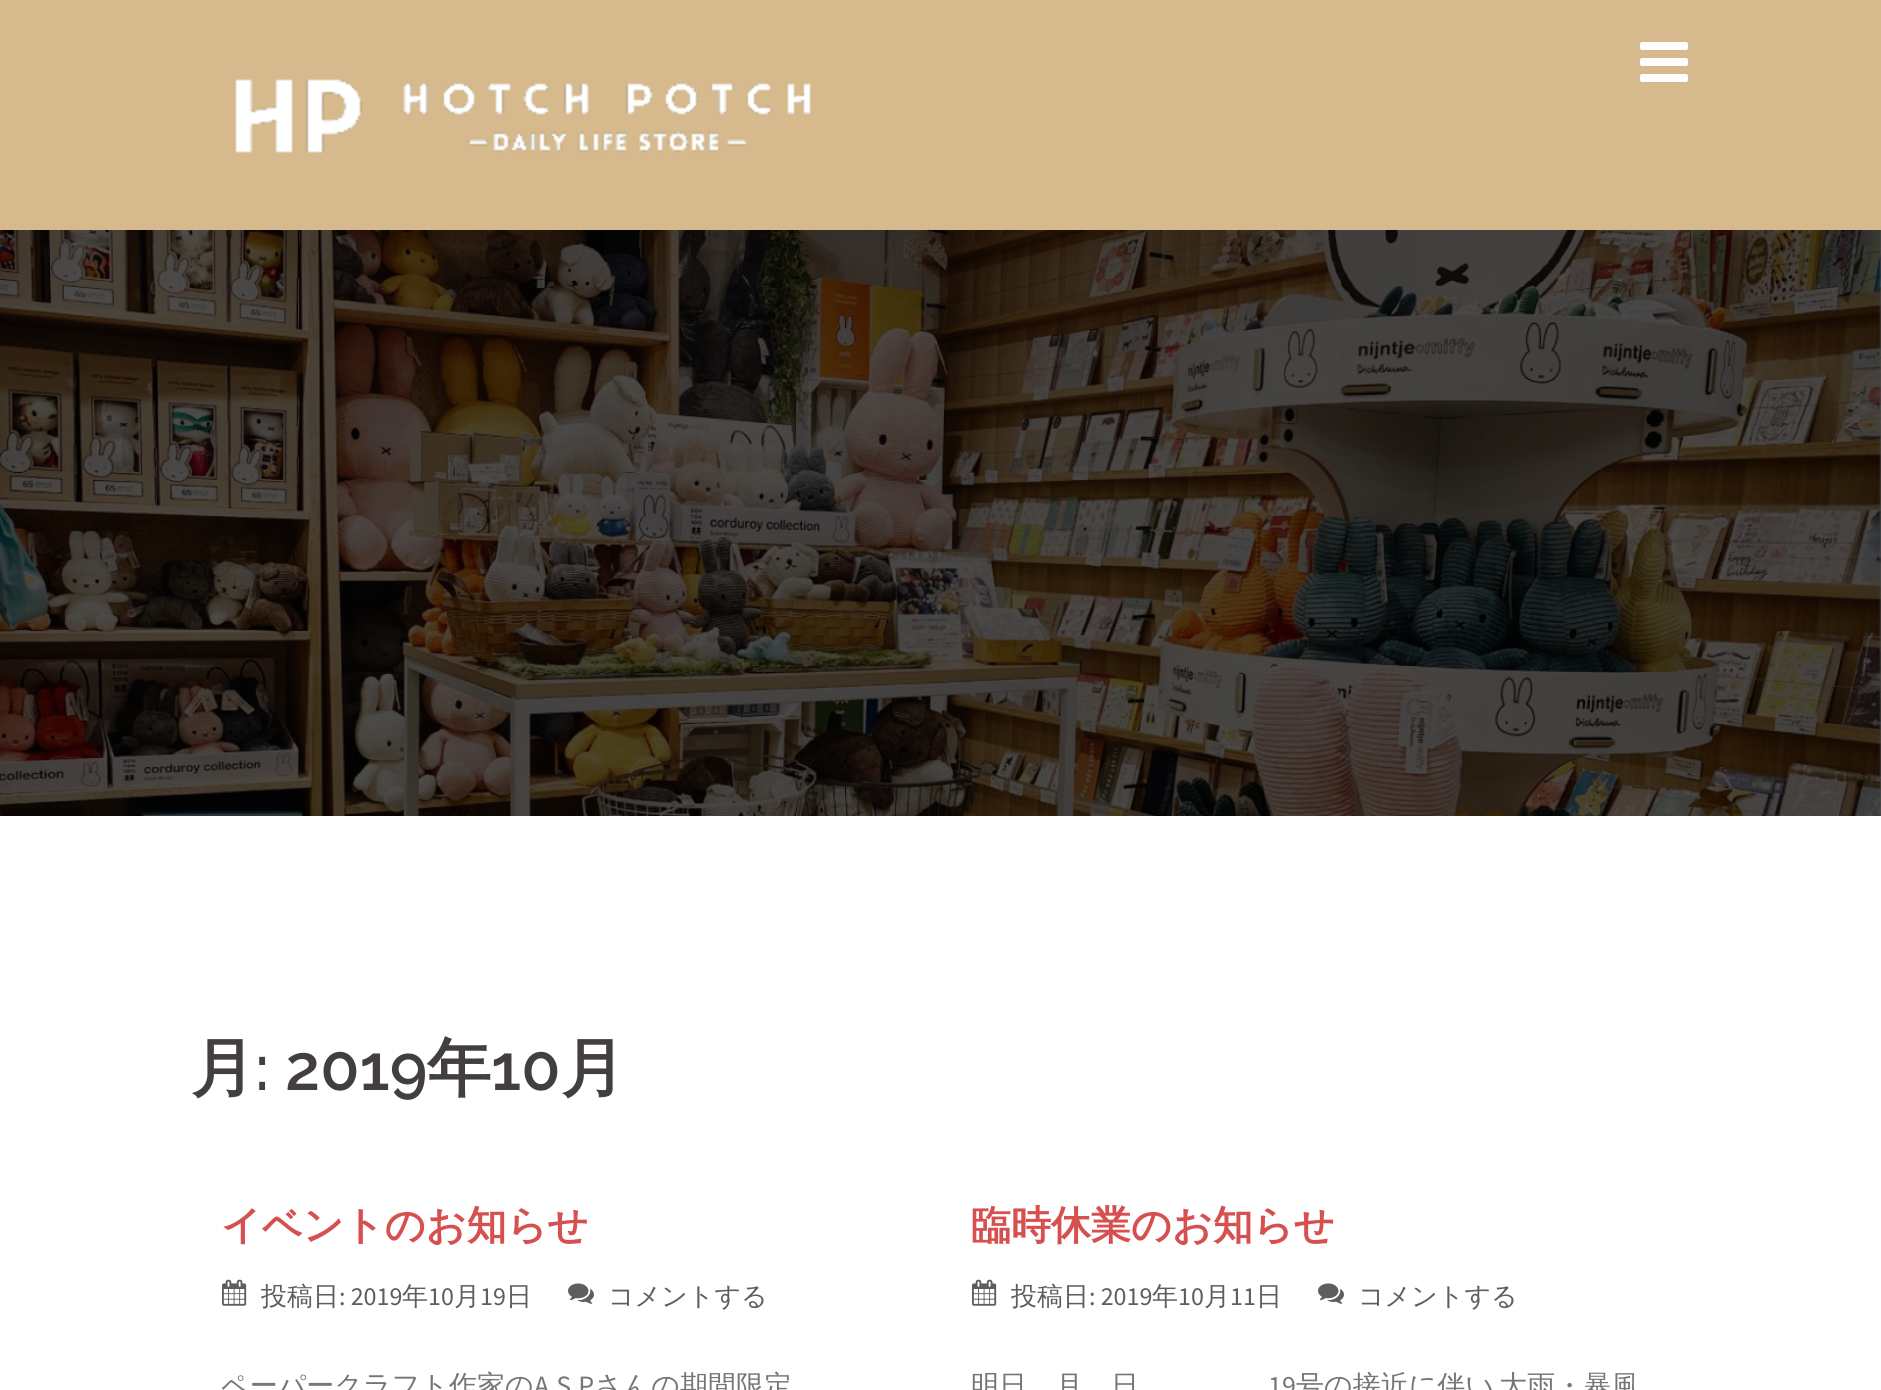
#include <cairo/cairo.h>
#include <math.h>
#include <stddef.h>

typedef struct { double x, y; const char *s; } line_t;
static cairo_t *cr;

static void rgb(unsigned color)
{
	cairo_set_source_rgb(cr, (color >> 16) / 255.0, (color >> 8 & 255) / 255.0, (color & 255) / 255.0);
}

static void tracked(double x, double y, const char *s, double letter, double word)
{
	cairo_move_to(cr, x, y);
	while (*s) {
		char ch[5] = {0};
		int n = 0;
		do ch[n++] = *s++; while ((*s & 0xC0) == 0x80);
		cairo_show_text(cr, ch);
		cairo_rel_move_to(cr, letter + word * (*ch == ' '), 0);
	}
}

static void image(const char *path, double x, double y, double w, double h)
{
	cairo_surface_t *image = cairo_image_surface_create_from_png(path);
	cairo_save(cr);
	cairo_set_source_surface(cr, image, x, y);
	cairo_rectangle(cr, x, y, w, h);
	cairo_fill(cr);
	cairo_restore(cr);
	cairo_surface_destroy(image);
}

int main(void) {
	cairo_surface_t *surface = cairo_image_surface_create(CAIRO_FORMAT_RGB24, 1881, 1390);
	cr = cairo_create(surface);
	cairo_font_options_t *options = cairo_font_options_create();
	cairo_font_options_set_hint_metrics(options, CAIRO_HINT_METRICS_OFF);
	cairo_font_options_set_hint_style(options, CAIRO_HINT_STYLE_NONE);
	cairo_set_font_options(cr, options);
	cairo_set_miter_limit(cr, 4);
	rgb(0xffffff);
	cairo_paint(cr);
	rgb(0xd6b98d);
	cairo_rectangle(cr, 0, 0, 1881, 230);
	cairo_fill(cr);
	image("img/1.png", 1640, 42, 48, 40);
	image("img/2.png", 235, 79, 576, 74);
	image("img/3.png", 0, 230, 1881, 586);
	image("img/4.png", 222, 1279, 25, 27);
	image("img/5.png", 568, 1283, 26, 21);
	image("img/4.png", 972, 1279, 25, 27);
	image("img/5.png", 1318, 1283, 26, 21);
	cairo_select_font_face(cr, "WenQuanYi Zen Hei", CAIRO_FONT_SLANT_NORMAL, CAIRO_FONT_WEIGHT_BOLD);
	cairo_set_font_size(cr, 64);
	rgb(0x443f3f);
	cairo_move_to(cr, 191, 1090);
	cairo_show_text(cr, "月");
	cairo_select_font_face(cr, "Raleway SemiBold", CAIRO_FONT_SLANT_NORMAL, CAIRO_FONT_WEIGHT_NORMAL);
	cairo_move_to(cr, 255, 1090);
	cairo_show_text(cr, ": 2019");
	cairo_select_font_face(cr, "WenQuanYi Zen Hei", CAIRO_FONT_SLANT_NORMAL, CAIRO_FONT_WEIGHT_BOLD);
	cairo_move_to(cr, 427, 1090);
	cairo_show_text(cr, "年");
	cairo_select_font_face(cr, "Raleway SemiBold", CAIRO_FONT_SLANT_NORMAL, CAIRO_FONT_WEIGHT_NORMAL);
	cairo_move_to(cr, 491, 1090);
	cairo_show_text(cr, "10");
	cairo_select_font_face(cr, "WenQuanYi Zen Hei", CAIRO_FONT_SLANT_NORMAL, CAIRO_FONT_WEIGHT_BOLD);
	cairo_move_to(cr, 561, 1090);
	cairo_show_text(cr, "月");
	cairo_set_font_size(cr, 40);
	rgb(0xd65050);
	cairo_move_to(cr, 221, 1239);
	cairo_show_text(cr, "イベントのお知らせ");
	cairo_select_font_face(cr, "WenQuanYi Zen Hei Medium", CAIRO_FONT_SLANT_NORMAL, CAIRO_FONT_WEIGHT_NORMAL);
	cairo_set_font_size(cr, 26);
	rgb(0x5e5e5e);
	cairo_move_to(cr, 261, 1305);
	cairo_show_text(cr, "投稿日");
	cairo_select_font_face(cr, "Source Sans Pro", CAIRO_FONT_SLANT_NORMAL, CAIRO_FONT_WEIGHT_NORMAL);
	cairo_move_to(cr, 339, 1305);
	cairo_show_text(cr, ": 2019");
	cairo_select_font_face(cr, "WenQuanYi Zen Hei Medium", CAIRO_FONT_SLANT_NORMAL, CAIRO_FONT_WEIGHT_NORMAL);
	cairo_move_to(cr, 402, 1305);
	cairo_show_text(cr, "年");
	cairo_select_font_face(cr, "Source Sans Pro", CAIRO_FONT_SLANT_NORMAL, CAIRO_FONT_WEIGHT_NORMAL);
	cairo_move_to(cr, 428, 1305);
	cairo_show_text(cr, "10");
	cairo_select_font_face(cr, "WenQuanYi Zen Hei Medium", CAIRO_FONT_SLANT_NORMAL, CAIRO_FONT_WEIGHT_NORMAL);
	cairo_move_to(cr, 454, 1305);
	cairo_show_text(cr, "月");
	cairo_select_font_face(cr, "Source Sans Pro", CAIRO_FONT_SLANT_NORMAL, CAIRO_FONT_WEIGHT_NORMAL);
	cairo_move_to(cr, 480, 1305);
	cairo_show_text(cr, "19");
	cairo_select_font_face(cr, "WenQuanYi Zen Hei Medium", CAIRO_FONT_SLANT_NORMAL, CAIRO_FONT_WEIGHT_NORMAL);
	cairo_move_to(cr, 506, 1305);
	cairo_show_text(cr, "日");
	cairo_move_to(cr, 608, 1305);
	cairo_show_text(cr, "コメントする");
	cairo_set_font_size(cr, 28);
	rgb(0x767676);
	cairo_move_to(cr, 221, 1395);
	cairo_show_text(cr, "ペーパークラフト作家の");
	cairo_select_font_face(cr, "Source Sans Pro", CAIRO_FONT_SLANT_NORMAL, CAIRO_FONT_WEIGHT_NORMAL);
	cairo_move_to(cr, 534, 1395);
	cairo_show_text(cr, "A.S.P");
	cairo_select_font_face(cr, "WenQuanYi Zen Hei Medium", CAIRO_FONT_SLANT_NORMAL, CAIRO_FONT_WEIGHT_NORMAL);
	cairo_move_to(cr, 594, 1395);
	cairo_show_text(cr, "さんの期間限定");
	cairo_select_font_face(cr, "WenQuanYi Zen Hei", CAIRO_FONT_SLANT_NORMAL, CAIRO_FONT_WEIGHT_BOLD);
	cairo_set_font_size(cr, 40);
	rgb(0xd65050);
	cairo_move_to(cr, 971, 1239);
	cairo_show_text(cr, "臨時休業のお知らせ");
	cairo_select_font_face(cr, "WenQuanYi Zen Hei Medium", CAIRO_FONT_SLANT_NORMAL, CAIRO_FONT_WEIGHT_NORMAL);
	cairo_set_font_size(cr, 26);
	rgb(0x5e5e5e);
	cairo_move_to(cr, 1011, 1305);
	cairo_show_text(cr, "投稿日");
	cairo_select_font_face(cr, "Source Sans Pro", CAIRO_FONT_SLANT_NORMAL, CAIRO_FONT_WEIGHT_NORMAL);
	cairo_move_to(cr, 1089, 1305);
	cairo_show_text(cr, ": 2019");
	cairo_select_font_face(cr, "WenQuanYi Zen Hei Medium", CAIRO_FONT_SLANT_NORMAL, CAIRO_FONT_WEIGHT_NORMAL);
	cairo_move_to(cr, 1152, 1305);
	cairo_show_text(cr, "年");
	cairo_select_font_face(cr, "Source Sans Pro", CAIRO_FONT_SLANT_NORMAL, CAIRO_FONT_WEIGHT_NORMAL);
	cairo_move_to(cr, 1178, 1305);
	cairo_show_text(cr, "10");
	cairo_select_font_face(cr, "WenQuanYi Zen Hei Medium", CAIRO_FONT_SLANT_NORMAL, CAIRO_FONT_WEIGHT_NORMAL);
	cairo_move_to(cr, 1204, 1305);
	cairo_show_text(cr, "月");
	cairo_select_font_face(cr, "Source Sans Pro", CAIRO_FONT_SLANT_NORMAL, CAIRO_FONT_WEIGHT_NORMAL);
	cairo_move_to(cr, 1230, 1305);
	cairo_show_text(cr, "11");
	cairo_select_font_face(cr, "WenQuanYi Zen Hei Medium", CAIRO_FONT_SLANT_NORMAL, CAIRO_FONT_WEIGHT_NORMAL);
	cairo_move_to(cr, 1256, 1305);
	cairo_show_text(cr, "日");
	cairo_move_to(cr, 1358, 1305);
	cairo_show_text(cr, "コメントする");
	cairo_set_font_size(cr, 28);
	rgb(0x767676);
	{
		static const line_t items[] = {
			{971, 1395, "明日"},
			{1055, 1395, "月"},
			{1111, 1395, "日"},
		};
		for (size_t i = 0; i < sizeof items / sizeof *items; i++) {
			cairo_move_to(cr, items[i].x, items[i].y);
			cairo_show_text(cr, items[i].s);
		}
	}
	cairo_select_font_face(cr, "Source Sans Pro", CAIRO_FONT_SLANT_NORMAL, CAIRO_FONT_WEIGHT_NORMAL);
	cairo_move_to(cr, 1268, 1395);
	cairo_show_text(cr, "19");
	cairo_select_font_face(cr, "WenQuanYi Zen Hei Medium", CAIRO_FONT_SLANT_NORMAL, CAIRO_FONT_WEIGHT_NORMAL);
	tracked(1296, 1395, "号の接近に伴い 大雨・暴風", 0, -3);
	cairo_surface_write_to_png(surface, "page.png");
	cairo_font_options_destroy(options);
	cairo_destroy(cr);
	cairo_surface_destroy(surface);
	return 0;
}
